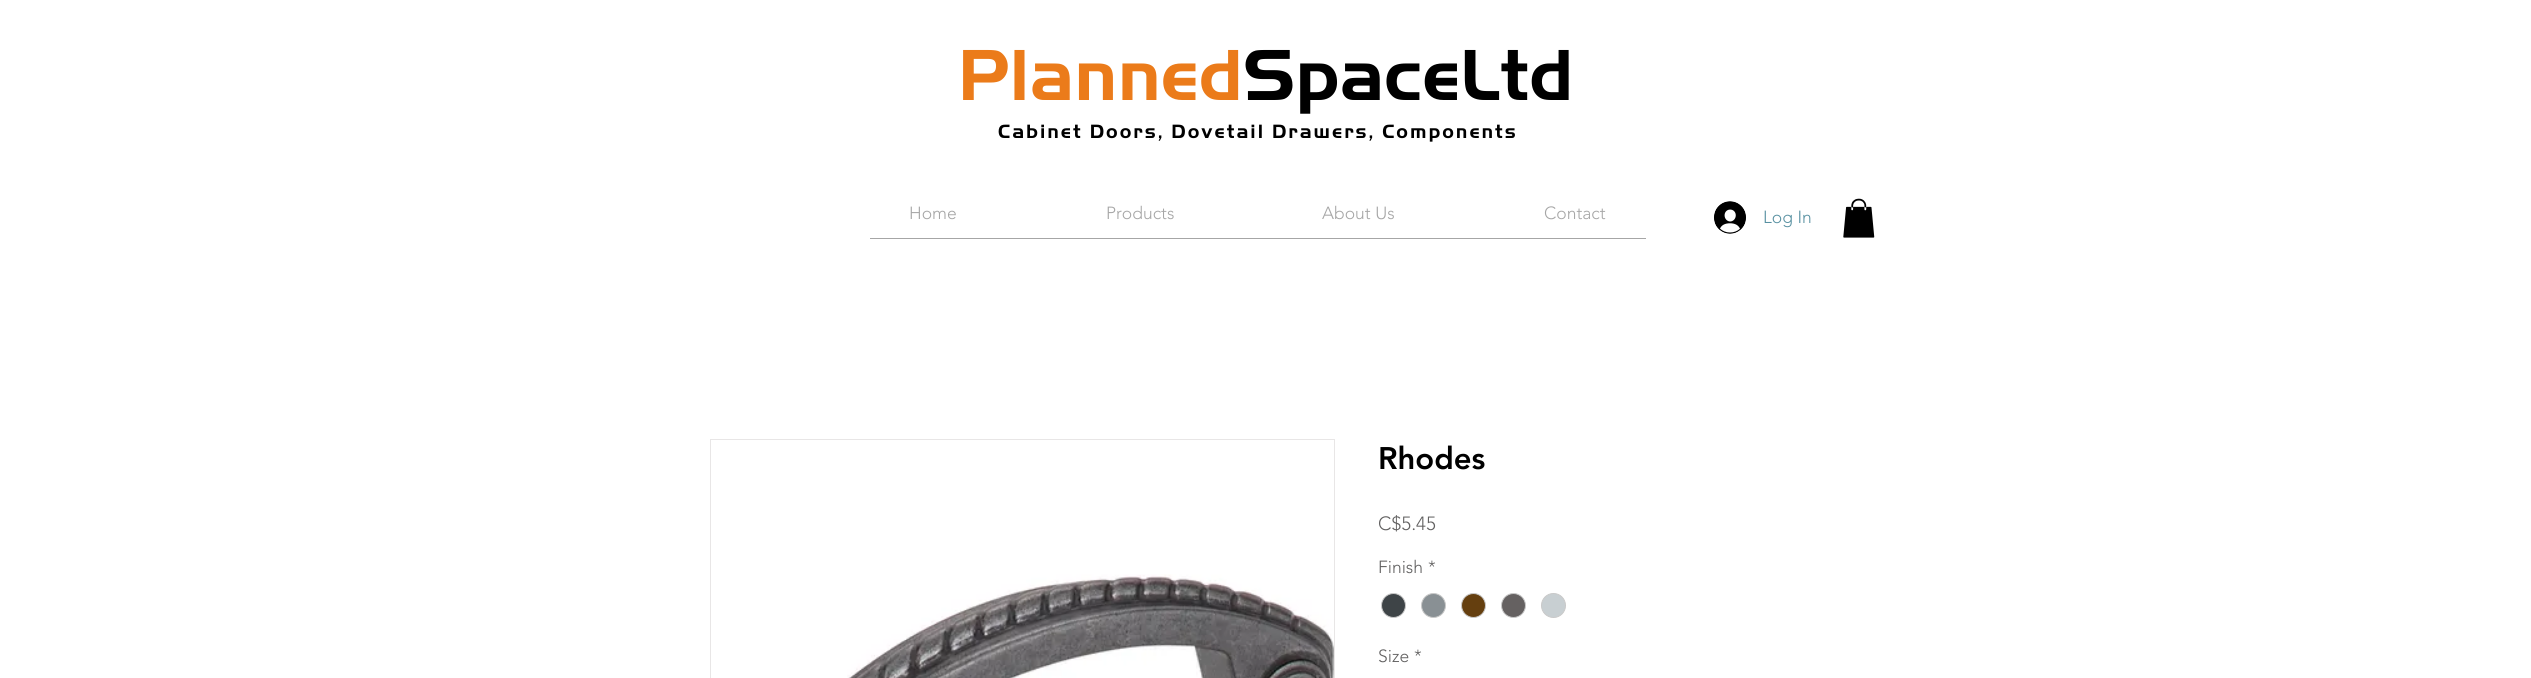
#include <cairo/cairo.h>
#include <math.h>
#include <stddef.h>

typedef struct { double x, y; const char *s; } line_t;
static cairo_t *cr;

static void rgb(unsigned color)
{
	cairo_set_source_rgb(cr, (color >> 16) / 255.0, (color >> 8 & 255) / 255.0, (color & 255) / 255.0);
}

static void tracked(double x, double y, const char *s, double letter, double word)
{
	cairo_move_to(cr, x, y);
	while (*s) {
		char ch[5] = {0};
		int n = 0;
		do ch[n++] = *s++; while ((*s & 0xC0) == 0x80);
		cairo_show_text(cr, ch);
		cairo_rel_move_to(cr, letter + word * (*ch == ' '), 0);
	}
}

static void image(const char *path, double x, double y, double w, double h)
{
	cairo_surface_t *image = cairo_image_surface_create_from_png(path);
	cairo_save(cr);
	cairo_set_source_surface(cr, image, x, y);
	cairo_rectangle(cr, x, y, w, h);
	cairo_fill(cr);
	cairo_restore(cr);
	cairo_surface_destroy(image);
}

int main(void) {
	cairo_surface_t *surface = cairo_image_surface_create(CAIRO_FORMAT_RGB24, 2531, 678);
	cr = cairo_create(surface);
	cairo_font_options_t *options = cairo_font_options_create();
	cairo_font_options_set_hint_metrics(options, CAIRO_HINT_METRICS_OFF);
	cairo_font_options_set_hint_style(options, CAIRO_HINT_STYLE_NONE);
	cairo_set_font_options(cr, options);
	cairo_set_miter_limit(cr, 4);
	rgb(0xffffff);
	cairo_paint(cr);
	image("img/1.png", 1714, 201, 32, 33);
	image("img/2.png", 1843, 198, 32, 40);
	rgb(0xa6a6a6);
	cairo_rectangle(cr, 870, 238, 776, 1);
	cairo_fill(cr);
	cairo_rectangle(cr, 710.5, 439.5, 624, 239);
	rgb(0xe8e6e6);
	cairo_set_line_width(cr, 1);
	cairo_stroke(cr);
	image("img/3.png", 847, 574, 487, 104);
	rgb(0x3e4447);
	cairo_arc(cr, 1393.5, 605.5, 12, 0, 2 * M_PI);
	cairo_fill_preserve(cr);
	rgb(0xc9c9c9);
	cairo_stroke(cr);
	rgb(0x899094);
	cairo_arc(cr, 1433.5, 605.5, 12, 0, 2 * M_PI);
	cairo_fill_preserve(cr);
	rgb(0xc9c9c9);
	cairo_stroke(cr);
	rgb(0x653f0f);
	cairo_arc(cr, 1473.5, 605.5, 12, 0, 2 * M_PI);
	cairo_fill_preserve(cr);
	rgb(0xc9c9c9);
	cairo_stroke(cr);
	rgb(0x656161);
	cairo_arc(cr, 1513.5, 605.5, 12, 0, 2 * M_PI);
	cairo_fill_preserve(cr);
	rgb(0xc9c9c9);
	cairo_stroke(cr);
	rgb(0xc8cfd2);
	cairo_arc(cr, 1553.5, 605.5, 12, 0, 2 * M_PI);
	cairo_fill_preserve(cr);
	rgb(0xc9c9c9);
	cairo_stroke(cr);
	cairo_select_font_face(cr, "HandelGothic", CAIRO_FONT_SLANT_NORMAL, CAIRO_FONT_WEIGHT_NORMAL);
	cairo_set_font_size(cr, 75);
	rgb(0xeb7b1a);
	cairo_move_to(cr, 958, 100);
	cairo_show_text(cr, "Planned");
	rgb(0x000000);
	cairo_move_to(cr, 1243, 100);
	cairo_show_text(cr, "SpaceLtd");
	cairo_set_font_size(cr, 20);
	tracked(998, 138, "Cabinet Doors, Dovetail Drawers, Components", 2, 0);
	cairo_select_font_face(cr, "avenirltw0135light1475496 Light", CAIRO_FONT_SLANT_NORMAL, CAIRO_FONT_WEIGHT_NORMAL);
	cairo_set_font_size(cr, 17.5);
	rgb(0xa6a6a6);
	{
		static const line_t items[] = {
			{909, 219, "Home"},
			{1106, 219, "Products"},
			{1322, 219, "About Us"},
			{1544, 219, "Contact"},
		};
		for (size_t i = 0; i < sizeof items / sizeof *items; i++) {
			cairo_move_to(cr, items[i].x, items[i].y);
			cairo_show_text(cr, items[i].s);
		}
	}
	rgb(0x5790a1);
	cairo_move_to(cr, 1763, 223);
	cairo_show_text(cr, "Log In");
	cairo_select_font_face(cr, "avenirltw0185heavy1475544 Black", CAIRO_FONT_SLANT_NORMAL, CAIRO_FONT_WEIGHT_NORMAL);
	cairo_set_font_size(cr, 31);
	rgb(0x000000);
	cairo_move_to(cr, 1378, 469);
	cairo_show_text(cr, "Rhodes");
	cairo_select_font_face(cr, "avenirltw0135light1475496 Light", CAIRO_FONT_SLANT_NORMAL, CAIRO_FONT_WEIGHT_NORMAL);
	cairo_set_font_size(cr, 19);
	rgb(0x616060);
	cairo_move_to(cr, 1378, 530);
	cairo_show_text(cr, "C$5.45");
	cairo_set_font_size(cr, 17.5);
	{
		static const line_t items[] = {
			{1378, 573, "Finish"},
			{1428, 573, "*"},
			{1378, 662, "Size"},
			{1414, 662, "*"},
		};
		for (size_t i = 0; i < sizeof items / sizeof *items; i++) {
			cairo_move_to(cr, items[i].x, items[i].y);
			cairo_show_text(cr, items[i].s);
		}
	}
	cairo_surface_write_to_png(surface, "page.png");
	cairo_font_options_destroy(options);
	cairo_destroy(cr);
	cairo_surface_destroy(surface);
	return 0;
}
